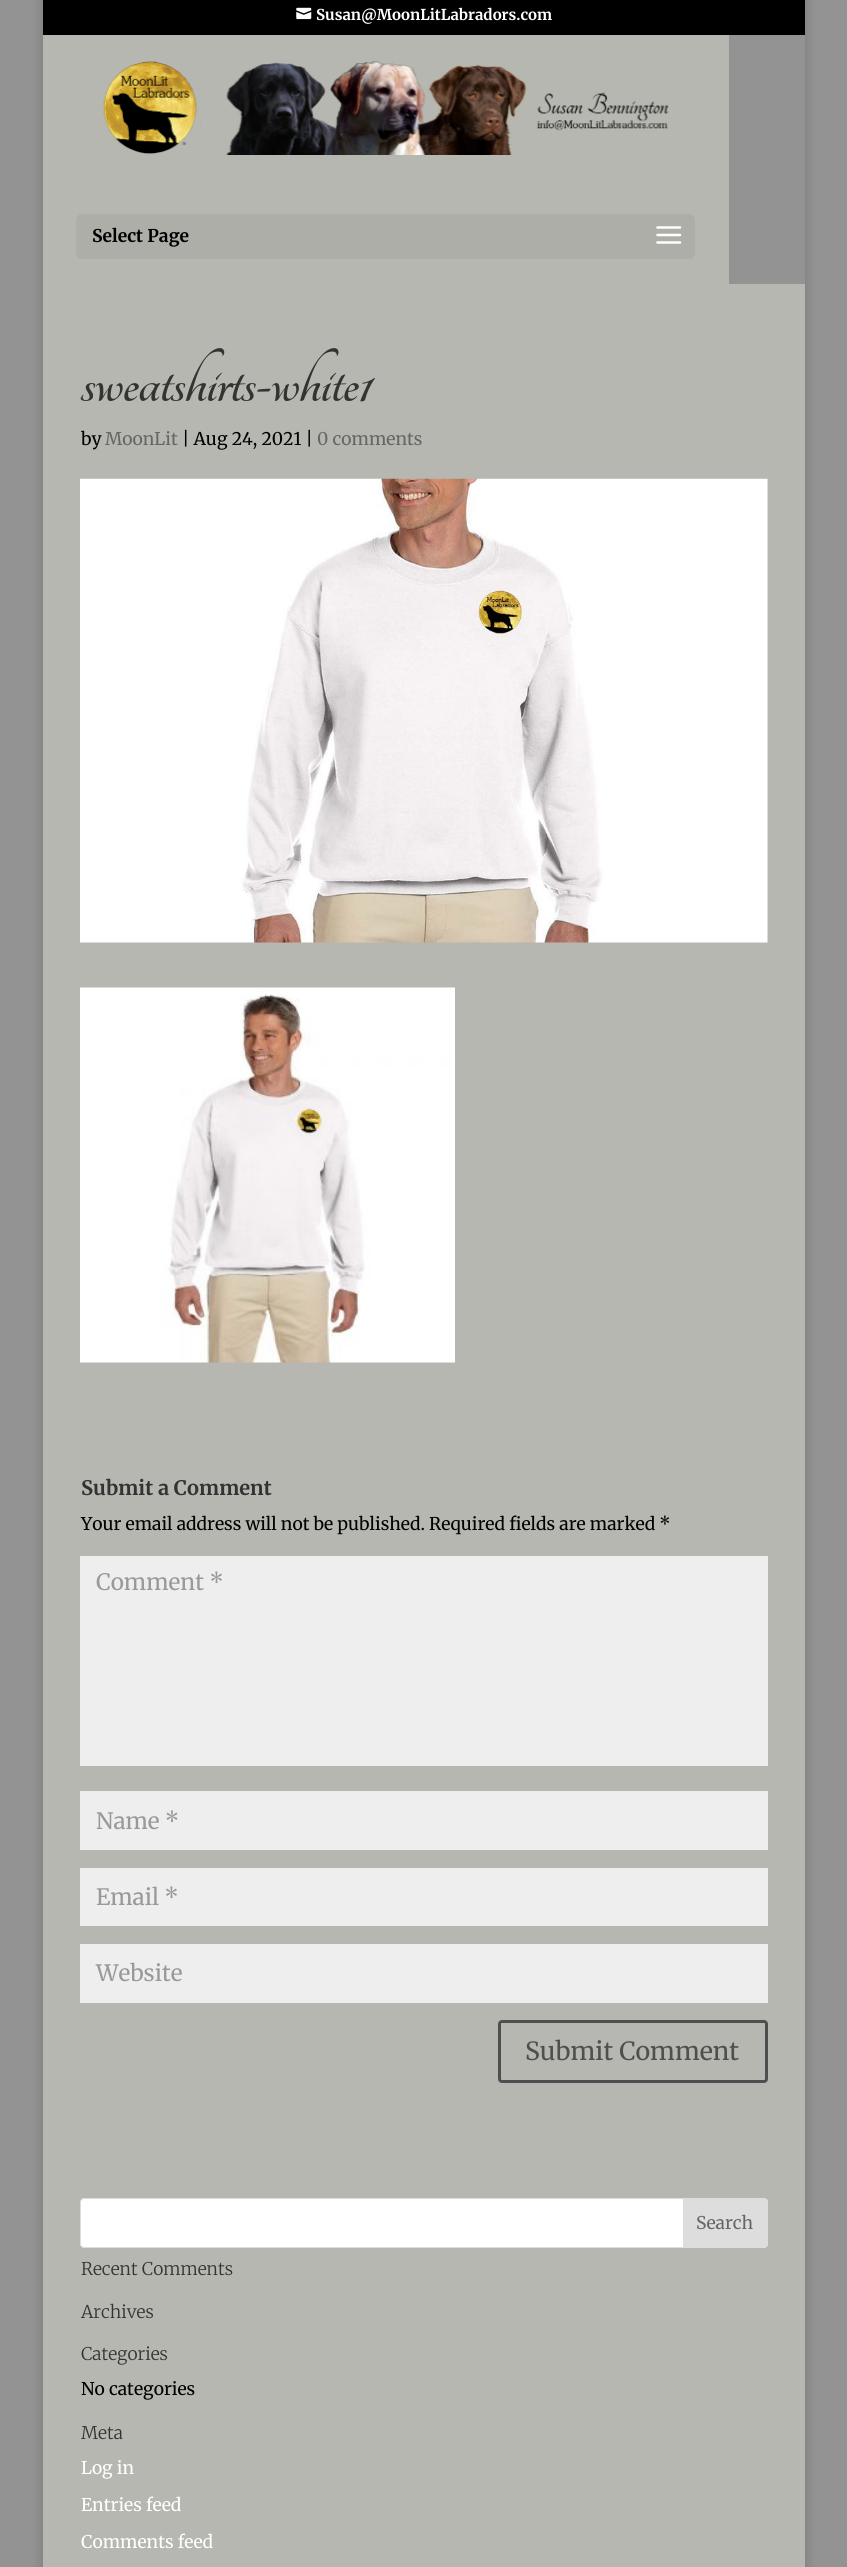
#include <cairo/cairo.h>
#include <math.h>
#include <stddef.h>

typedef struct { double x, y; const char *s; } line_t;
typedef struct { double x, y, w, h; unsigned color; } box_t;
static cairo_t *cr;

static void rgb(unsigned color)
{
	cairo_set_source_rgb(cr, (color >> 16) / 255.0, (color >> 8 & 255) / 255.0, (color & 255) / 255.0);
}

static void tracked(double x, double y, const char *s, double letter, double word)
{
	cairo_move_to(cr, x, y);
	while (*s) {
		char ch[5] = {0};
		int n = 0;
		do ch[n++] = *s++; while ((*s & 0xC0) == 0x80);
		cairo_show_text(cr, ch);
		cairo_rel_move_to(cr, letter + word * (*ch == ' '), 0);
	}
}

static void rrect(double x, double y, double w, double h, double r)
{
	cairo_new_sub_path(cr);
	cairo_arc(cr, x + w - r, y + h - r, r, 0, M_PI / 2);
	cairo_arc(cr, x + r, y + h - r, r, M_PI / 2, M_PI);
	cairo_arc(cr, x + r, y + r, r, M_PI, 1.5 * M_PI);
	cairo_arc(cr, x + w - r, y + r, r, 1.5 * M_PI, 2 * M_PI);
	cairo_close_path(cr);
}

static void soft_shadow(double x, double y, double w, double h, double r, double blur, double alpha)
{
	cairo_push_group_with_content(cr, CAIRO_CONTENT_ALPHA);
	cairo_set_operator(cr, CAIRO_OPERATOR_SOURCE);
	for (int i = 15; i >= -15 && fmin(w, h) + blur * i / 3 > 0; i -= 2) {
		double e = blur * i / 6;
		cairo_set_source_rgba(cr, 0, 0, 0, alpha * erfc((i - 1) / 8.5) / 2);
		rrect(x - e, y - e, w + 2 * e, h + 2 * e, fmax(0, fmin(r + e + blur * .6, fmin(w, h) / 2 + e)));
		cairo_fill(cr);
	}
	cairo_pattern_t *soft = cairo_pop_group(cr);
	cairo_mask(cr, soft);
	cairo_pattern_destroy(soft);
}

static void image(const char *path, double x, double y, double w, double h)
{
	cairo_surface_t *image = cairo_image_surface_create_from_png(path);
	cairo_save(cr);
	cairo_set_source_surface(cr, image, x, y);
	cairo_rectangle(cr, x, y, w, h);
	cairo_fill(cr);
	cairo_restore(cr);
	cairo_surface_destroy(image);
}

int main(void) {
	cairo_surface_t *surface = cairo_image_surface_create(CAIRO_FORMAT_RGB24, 847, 2567);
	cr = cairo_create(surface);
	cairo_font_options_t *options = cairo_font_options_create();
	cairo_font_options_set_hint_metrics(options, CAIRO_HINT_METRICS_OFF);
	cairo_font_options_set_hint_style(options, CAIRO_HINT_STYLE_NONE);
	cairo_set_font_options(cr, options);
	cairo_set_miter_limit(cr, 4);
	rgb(0x939393);
	cairo_paint(cr);
	cairo_save(cr);
	cairo_set_fill_rule(cr, CAIRO_FILL_RULE_EVEN_ODD);
	cairo_new_path(cr);
	cairo_move_to(cr, 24, 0);
	cairo_line_to(cr, 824, 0);
	cairo_line_to(cr, 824, 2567);
	cairo_line_to(cr, 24, 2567);
	cairo_close_path(cr);
	cairo_move_to(cr, 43, 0);
	cairo_line_to(cr, 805, 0);
	cairo_line_to(cr, 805, 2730);
	cairo_line_to(cr, 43, 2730);
	cairo_close_path(cr);
	cairo_clip(cr);
	rgb(0x000000);
	soft_shadow(43, 0, 762, 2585, 0, 6, 0.2);
	cairo_restore(cr);
	rgb(0x000000);
	cairo_rectangle(cr, 43, 0, 762, 35);
	cairo_fill(cr);
	image("img/1.png", 296, 7, 16, 13);
	rgb(0xb6b7b0);
	cairo_rectangle(cr, 43, 35, 686, 249);
	cairo_fill(cr);
	image("img/2.png", 103, 61, 566, 94);
	rgb(0xadaea7);
	rrect(76, 214, 619, 45, 6);
	cairo_fill(cr);
	image("img/3.png", 656, 226, 26, 18);
	rgb(0xb6b7b0);
	cairo_rectangle(cr, 43, 284, 762, 2283);
	cairo_fill(cr);
	image("img/4.png", 80, 478, 688, 465);
	image("img/5.png", 80, 987, 375, 376);
	{
		static const box_t items[] = {
			{80, 1556, 688, 210, 0xeeeeee},
			{80, 1791, 688, 59, 0xeeeeee},
			{80, 1868, 688, 58, 0xeeeeee},
			{80, 1944, 688, 59, 0xeeeeee},
		};
		for (size_t i = 0; i < sizeof items / sizeof *items; i++) {
			rgb(items[i].color);
			cairo_rectangle(cr, items[i].x, items[i].y, items[i].w, items[i].h);
			cairo_fill(cr);
		}
	}
	rrect(499.5, 2021.5, 267, 60, 2.5);
	rgb(0x4f4f4f);
	cairo_set_line_width(cr, 3);
	cairo_stroke(cr);
	rgb(0xffffff);
	rrect(80.5, 2198.5, 687, 49, 3.5);
	cairo_fill_preserve(cr);
	rgb(0xdddddd);
	cairo_set_line_width(cr, 1);
	cairo_stroke(cr);
	cairo_new_path(cr);
	cairo_move_to(cr, 683.5, 2198.5);
	cairo_line_to(cr, 764, 2198.5);
	cairo_curve_to(cr, 766, 2198.5, 767.5, 2200, 767.5, 2202);
	cairo_line_to(cr, 767.5, 2244);
	cairo_curve_to(cr, 767.5, 2246, 766, 2247.5, 764, 2247.5);
	cairo_line_to(cr, 683.5, 2247.5);
	cairo_close_path(cr);
	cairo_fill_preserve(cr);
	cairo_stroke(cr);
	cairo_select_font_face(cr, "Merriweather", CAIRO_FONT_SLANT_NORMAL, CAIRO_FONT_WEIGHT_BOLD);
	cairo_set_font_size(cr, 15);
	rgb(0xffffff);
	cairo_move_to(cr, 316, 20);
	cairo_show_text(cr, "Susan@MoonLitLabradors.com");
	cairo_set_font_size(cr, 17.5);
	rgb(0x000000);
	cairo_move_to(cr, 92, 242);
	cairo_show_text(cr, "Select Page");
	cairo_select_font_face(cr, "Tangerine", CAIRO_FONT_SLANT_NORMAL, CAIRO_FONT_WEIGHT_BOLD);
	cairo_set_font_size(cr, 70);
	rgb(0x333333);
	tracked(81, 401, "sweatshirts-white1", -1.25, 0);
	cairo_select_font_face(cr, "Merriweather Light", CAIRO_FONT_SLANT_NORMAL, CAIRO_FONT_WEIGHT_NORMAL);
	cairo_set_font_size(cr, 17.5);
	rgb(0x000000);
	cairo_move_to(cr, 81, 445);
	cairo_show_text(cr, "by");
	rgb(0x666666);
	cairo_move_to(cr, 105, 445);
	cairo_show_text(cr, "MoonLit");
	rgb(0x000000);
	cairo_move_to(cr, 182, 445);
	cairo_show_text(cr, "| Aug 24, 2021 |");
	rgb(0x666666);
	cairo_move_to(cr, 317, 445);
	cairo_show_text(cr, "0 comments");
	cairo_select_font_face(cr, "Merriweather", CAIRO_FONT_SLANT_NORMAL, CAIRO_FONT_WEIGHT_BOLD);
	cairo_set_font_size(cr, 20);
	rgb(0x333333);
	cairo_move_to(cr, 81, 1495);
	cairo_show_text(cr, "Submit a Comment");
	cairo_select_font_face(cr, "Merriweather Light", CAIRO_FONT_SLANT_NORMAL, CAIRO_FONT_WEIGHT_NORMAL);
	cairo_set_font_size(cr, 17.5);
	rgb(0x000000);
	cairo_move_to(cr, 81, 1530);
	cairo_show_text(cr, "Your email address will not be published. Required fields are marked *");
	cairo_set_font_size(cr, 22.5);
	rgb(0x999999);
	{
		static const line_t items[] = {
			{96, 1590, "Comment *"},
			{96, 1829, "Name *"},
			{96, 1905, "Email *"},
			{96, 1981, "Website"},
		};
		for (size_t i = 0; i < sizeof items / sizeof *items; i++) {
			cairo_move_to(cr, items[i].x, items[i].y);
			cairo_show_text(cr, items[i].s);
		}
	}
	cairo_set_font_size(cr, 25);
	rgb(0x4f4f4f);
	cairo_move_to(cr, 525, 2060);
	cairo_show_text(cr, "Submit Comment");
	cairo_set_font_size(cr, 17.5);
	rgb(0x666666);
	cairo_move_to(cr, 696, 2229);
	cairo_show_text(cr, "Search");
	cairo_select_font_face(cr, "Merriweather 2 Light", CAIRO_FONT_SLANT_NORMAL, CAIRO_FONT_WEIGHT_NORMAL);
	rgb(0x333333);
	{
		static const line_t items[] = {
			{81, 2275, "Recent Comments"},
			{81, 2318, "Archives"},
			{81, 2360, "Categories"},
		};
		for (size_t i = 0; i < sizeof items / sizeof *items; i++) {
			cairo_move_to(cr, items[i].x, items[i].y);
			cairo_show_text(cr, items[i].s);
		}
	}
	cairo_select_font_face(cr, "Merriweather Light", CAIRO_FONT_SLANT_NORMAL, CAIRO_FONT_WEIGHT_NORMAL);
	rgb(0x000000);
	cairo_move_to(cr, 81, 2395);
	cairo_show_text(cr, "No categories");
	cairo_select_font_face(cr, "Merriweather 2 Light", CAIRO_FONT_SLANT_NORMAL, CAIRO_FONT_WEIGHT_NORMAL);
	rgb(0x333333);
	cairo_move_to(cr, 81, 2439);
	cairo_show_text(cr, "Meta");
	cairo_select_font_face(cr, "Merriweather Light", CAIRO_FONT_SLANT_NORMAL, CAIRO_FONT_WEIGHT_NORMAL);
	rgb(0xffffff);
	{
		static const line_t items[] = {
			{81, 2474, "Log in"},
			{81, 2511, "Entries feed"},
			{81, 2548, "Comments feed"},
		};
		for (size_t i = 0; i < sizeof items / sizeof *items; i++) {
			cairo_move_to(cr, items[i].x, items[i].y);
			cairo_show_text(cr, items[i].s);
		}
	}
	cairo_surface_write_to_png(surface, "page.png");
	cairo_font_options_destroy(options);
	cairo_destroy(cr);
	cairo_surface_destroy(surface);
	return 0;
}
